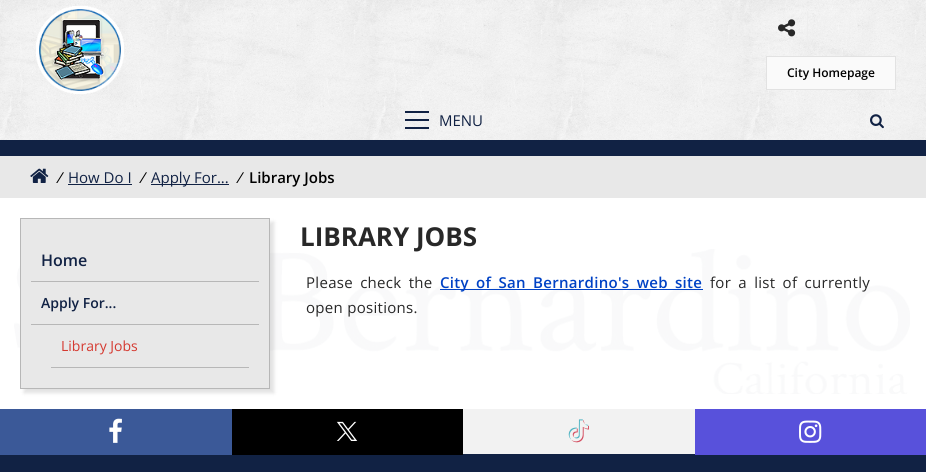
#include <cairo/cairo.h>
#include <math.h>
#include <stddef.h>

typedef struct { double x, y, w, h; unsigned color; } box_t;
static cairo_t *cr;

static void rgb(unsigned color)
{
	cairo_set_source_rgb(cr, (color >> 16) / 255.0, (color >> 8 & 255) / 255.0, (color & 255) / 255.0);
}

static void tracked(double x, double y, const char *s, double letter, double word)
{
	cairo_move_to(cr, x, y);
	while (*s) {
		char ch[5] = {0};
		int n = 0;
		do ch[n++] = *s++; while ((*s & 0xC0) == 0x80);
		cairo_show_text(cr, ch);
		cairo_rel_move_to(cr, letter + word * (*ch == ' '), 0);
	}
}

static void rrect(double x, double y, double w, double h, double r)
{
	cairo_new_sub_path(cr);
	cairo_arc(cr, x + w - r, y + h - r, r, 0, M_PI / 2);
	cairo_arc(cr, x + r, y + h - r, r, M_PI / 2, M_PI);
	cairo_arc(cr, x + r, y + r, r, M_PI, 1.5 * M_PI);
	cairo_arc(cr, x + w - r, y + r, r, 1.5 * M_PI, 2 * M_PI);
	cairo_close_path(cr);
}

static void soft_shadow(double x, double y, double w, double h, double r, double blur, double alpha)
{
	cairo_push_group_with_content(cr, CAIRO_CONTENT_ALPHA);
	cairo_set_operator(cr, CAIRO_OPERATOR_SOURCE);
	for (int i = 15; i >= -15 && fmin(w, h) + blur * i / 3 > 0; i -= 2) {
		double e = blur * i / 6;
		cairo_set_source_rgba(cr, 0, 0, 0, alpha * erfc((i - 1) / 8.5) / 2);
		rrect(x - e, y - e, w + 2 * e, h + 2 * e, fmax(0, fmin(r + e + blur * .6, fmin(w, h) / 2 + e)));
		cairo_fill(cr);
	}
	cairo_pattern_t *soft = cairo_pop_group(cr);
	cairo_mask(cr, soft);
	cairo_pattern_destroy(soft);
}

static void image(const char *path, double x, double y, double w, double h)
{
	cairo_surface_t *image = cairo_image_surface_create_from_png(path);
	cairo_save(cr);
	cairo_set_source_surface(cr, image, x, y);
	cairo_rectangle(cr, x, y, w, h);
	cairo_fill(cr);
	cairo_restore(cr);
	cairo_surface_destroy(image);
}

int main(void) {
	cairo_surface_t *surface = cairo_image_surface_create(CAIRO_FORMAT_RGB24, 926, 472);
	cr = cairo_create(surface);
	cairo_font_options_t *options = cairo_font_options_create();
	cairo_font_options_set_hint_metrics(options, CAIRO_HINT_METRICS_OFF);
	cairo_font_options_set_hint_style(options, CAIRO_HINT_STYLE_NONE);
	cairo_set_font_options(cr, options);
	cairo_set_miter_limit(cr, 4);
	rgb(0xffffff);
	cairo_paint(cr);
	image("img/1.png", 0, 0, 926, 140);
	rgb(0x112244);
	cairo_rectangle(cr, 0, 140, 926, 16);
	cairo_fill(cr);
	image("img/2.png", 36, 6, 88, 88);
	rgb(0xeeeeee);
	cairo_rectangle(cr, 807, 11, 1, 35);
	cairo_fill(cr);
	image("img/3.png", 778, 19, 18, 18);
	rgb(0xfafafa);
	cairo_rectangle(cr, 766.5, 56.5, 129, 33);
	cairo_fill_preserve(cr);
	rgb(0xe2e2e2);
	cairo_set_line_width(cr, 1);
	cairo_stroke(cr);
	{
		static const box_t items[] = {
			{405, 119, 24, 2, 0x112244},
			{405, 111, 24, 2, 0x112244},
			{405, 127, 24, 2, 0x112244},
		};
		for (size_t i = 0; i < sizeof items / sizeof *items; i++) {
			rgb(items[i].color);
			cairo_rectangle(cr, items[i].x, items[i].y, items[i].w, items[i].h);
			cairo_fill(cr);
		}
	}
	image("img/4.png", 870, 114, 14, 15);
	rgb(0xe8e8e8);
	cairo_rectangle(cr, 0, 156, 926, 42);
	cairo_fill(cr);
	image("img/5.png", 30, 168, 19, 15);
	rgb(0x112244);
	cairo_rectangle(cr, 68, 184, 64, 1);
	cairo_fill(cr);
	cairo_rectangle(cr, 151, 184, 78, 1);
	cairo_fill(cr);
	image("img/6.png", 14, 249, 896, 145);
	rgb(0x000000);
	soft_shadow(24, 222, 250, 171, 0, 2, 0.12);
	rgb(0xe8e8e8);
	cairo_rectangle(cr, 20.5, 218.5, 249, 170);
	cairo_fill_preserve(cr);
	rgb(0xb7b7b7);
	cairo_stroke(cr);
	{
		static const box_t items[] = {
			{31, 281, 228, 1, 0xb7b7b7},
			{31, 324, 228, 1, 0xb7b7b7},
			{51, 367, 198, 1, 0xb7b7b7},
			{440, 289, 263, 1, 0x0042c5},
			{0, 454, 926, 18, 0x112244},
			{0, 409, 232, 46, 0x3b5998},
		};
		for (size_t i = 0; i < sizeof items / sizeof *items; i++) {
			rgb(items[i].color);
			cairo_rectangle(cr, items[i].x, items[i].y, items[i].w, items[i].h);
			cairo_fill(cr);
		}
	}
	image("img/7.png", 109, 418, 13, 25);
	rgb(0x000000);
	cairo_rectangle(cr, 232, 409, 231, 46);
	cairo_fill(cr);
	image("img/8.png", 336, 421, 22, 20);
	rgb(0xf2f2f2);
	cairo_rectangle(cr, 463, 409, 232, 45);
	cairo_fill(cr);
	image("img/9.png", 568, 419, 21, 24);
	rgb(0x5851db);
	cairo_rectangle(cr, 695, 409, 231, 46);
	cairo_fill(cr);
	image("img/10.png", 799, 420, 23, 23);
	cairo_select_font_face(cr, "Open Sans SemiBold", CAIRO_FONT_SLANT_NORMAL, CAIRO_FONT_WEIGHT_NORMAL);
	cairo_set_font_size(cr, 12);
	rgb(0x000000);
	cairo_move_to(cr, 787, 77);
	cairo_show_text(cr, "City Homepage");
	cairo_select_font_face(cr, "Open Sans", CAIRO_FONT_SLANT_NORMAL, CAIRO_FONT_WEIGHT_NORMAL);
	cairo_set_font_size(cr, 15);
	rgb(0x112244);
	cairo_move_to(cr, 439, 126);
	cairo_show_text(cr, "MENU");
	cairo_select_font_face(cr, "Open Sans", CAIRO_FONT_SLANT_ITALIC, CAIRO_FONT_WEIGHT_NORMAL);
	rgb(0x000000);
	cairo_move_to(cr, 56, 183);
	cairo_show_text(cr, "/");
	cairo_select_font_face(cr, "Open Sans", CAIRO_FONT_SLANT_NORMAL, CAIRO_FONT_WEIGHT_NORMAL);
	rgb(0x112244);
	cairo_move_to(cr, 68, 183);
	cairo_show_text(cr, "How Do I");
	cairo_select_font_face(cr, "Open Sans", CAIRO_FONT_SLANT_ITALIC, CAIRO_FONT_WEIGHT_NORMAL);
	rgb(0x000000);
	cairo_move_to(cr, 139, 183);
	cairo_show_text(cr, "/");
	cairo_select_font_face(cr, "Open Sans", CAIRO_FONT_SLANT_NORMAL, CAIRO_FONT_WEIGHT_NORMAL);
	rgb(0x112244);
	cairo_move_to(cr, 151, 183);
	cairo_show_text(cr, "Apply For...");
	cairo_select_font_face(cr, "Open Sans", CAIRO_FONT_SLANT_ITALIC, CAIRO_FONT_WEIGHT_NORMAL);
	rgb(0x000000);
	cairo_move_to(cr, 236, 183);
	cairo_show_text(cr, "/");
	cairo_select_font_face(cr, "Open Sans SemiBold", CAIRO_FONT_SLANT_NORMAL, CAIRO_FONT_WEIGHT_NORMAL);
	cairo_move_to(cr, 249, 183);
	cairo_show_text(cr, "Library Jobs");
	cairo_set_font_size(cr, 16);
	rgb(0x112244);
	cairo_move_to(cr, 41, 266);
	cairo_show_text(cr, "Home");
	cairo_set_font_size(cr, 14);
	cairo_move_to(cr, 41, 308);
	cairo_show_text(cr, "Apply For...");
	cairo_select_font_face(cr, "Open Sans", CAIRO_FONT_SLANT_NORMAL, CAIRO_FONT_WEIGHT_NORMAL);
	rgb(0xd53930);
	cairo_move_to(cr, 61, 351);
	cairo_show_text(cr, "Library Jobs");
	cairo_select_font_face(cr, "Open Sans", CAIRO_FONT_SLANT_NORMAL, CAIRO_FONT_WEIGHT_BOLD);
	cairo_set_font_size(cr, 26);
	rgb(0x282828);
	cairo_move_to(cr, 300, 246);
	cairo_show_text(cr, "LIBRARY JOBS");
	cairo_select_font_face(cr, "Open Sans", CAIRO_FONT_SLANT_NORMAL, CAIRO_FONT_WEIGHT_NORMAL);
	cairo_set_font_size(cr, 15);
	tracked(306, 288, "Please check the", 0.3, 3);
	cairo_select_font_face(cr, "Open Sans SemiBold", CAIRO_FONT_SLANT_NORMAL, CAIRO_FONT_WEIGHT_NORMAL);
	rgb(0x0042c5);
	tracked(440, 288, "City of San Bernardino's web site", 0.3, 3);
	cairo_select_font_face(cr, "Open Sans", CAIRO_FONT_SLANT_NORMAL, CAIRO_FONT_WEIGHT_NORMAL);
	rgb(0x282828);
	tracked(710, 288, "for a list of currently", 0.3, 3);
	tracked(306, 313, "open positions.", 0.3, 0);
	cairo_surface_write_to_png(surface, "page.png");
	cairo_font_options_destroy(options);
	cairo_destroy(cr);
	cairo_surface_destroy(surface);
	return 0;
}
